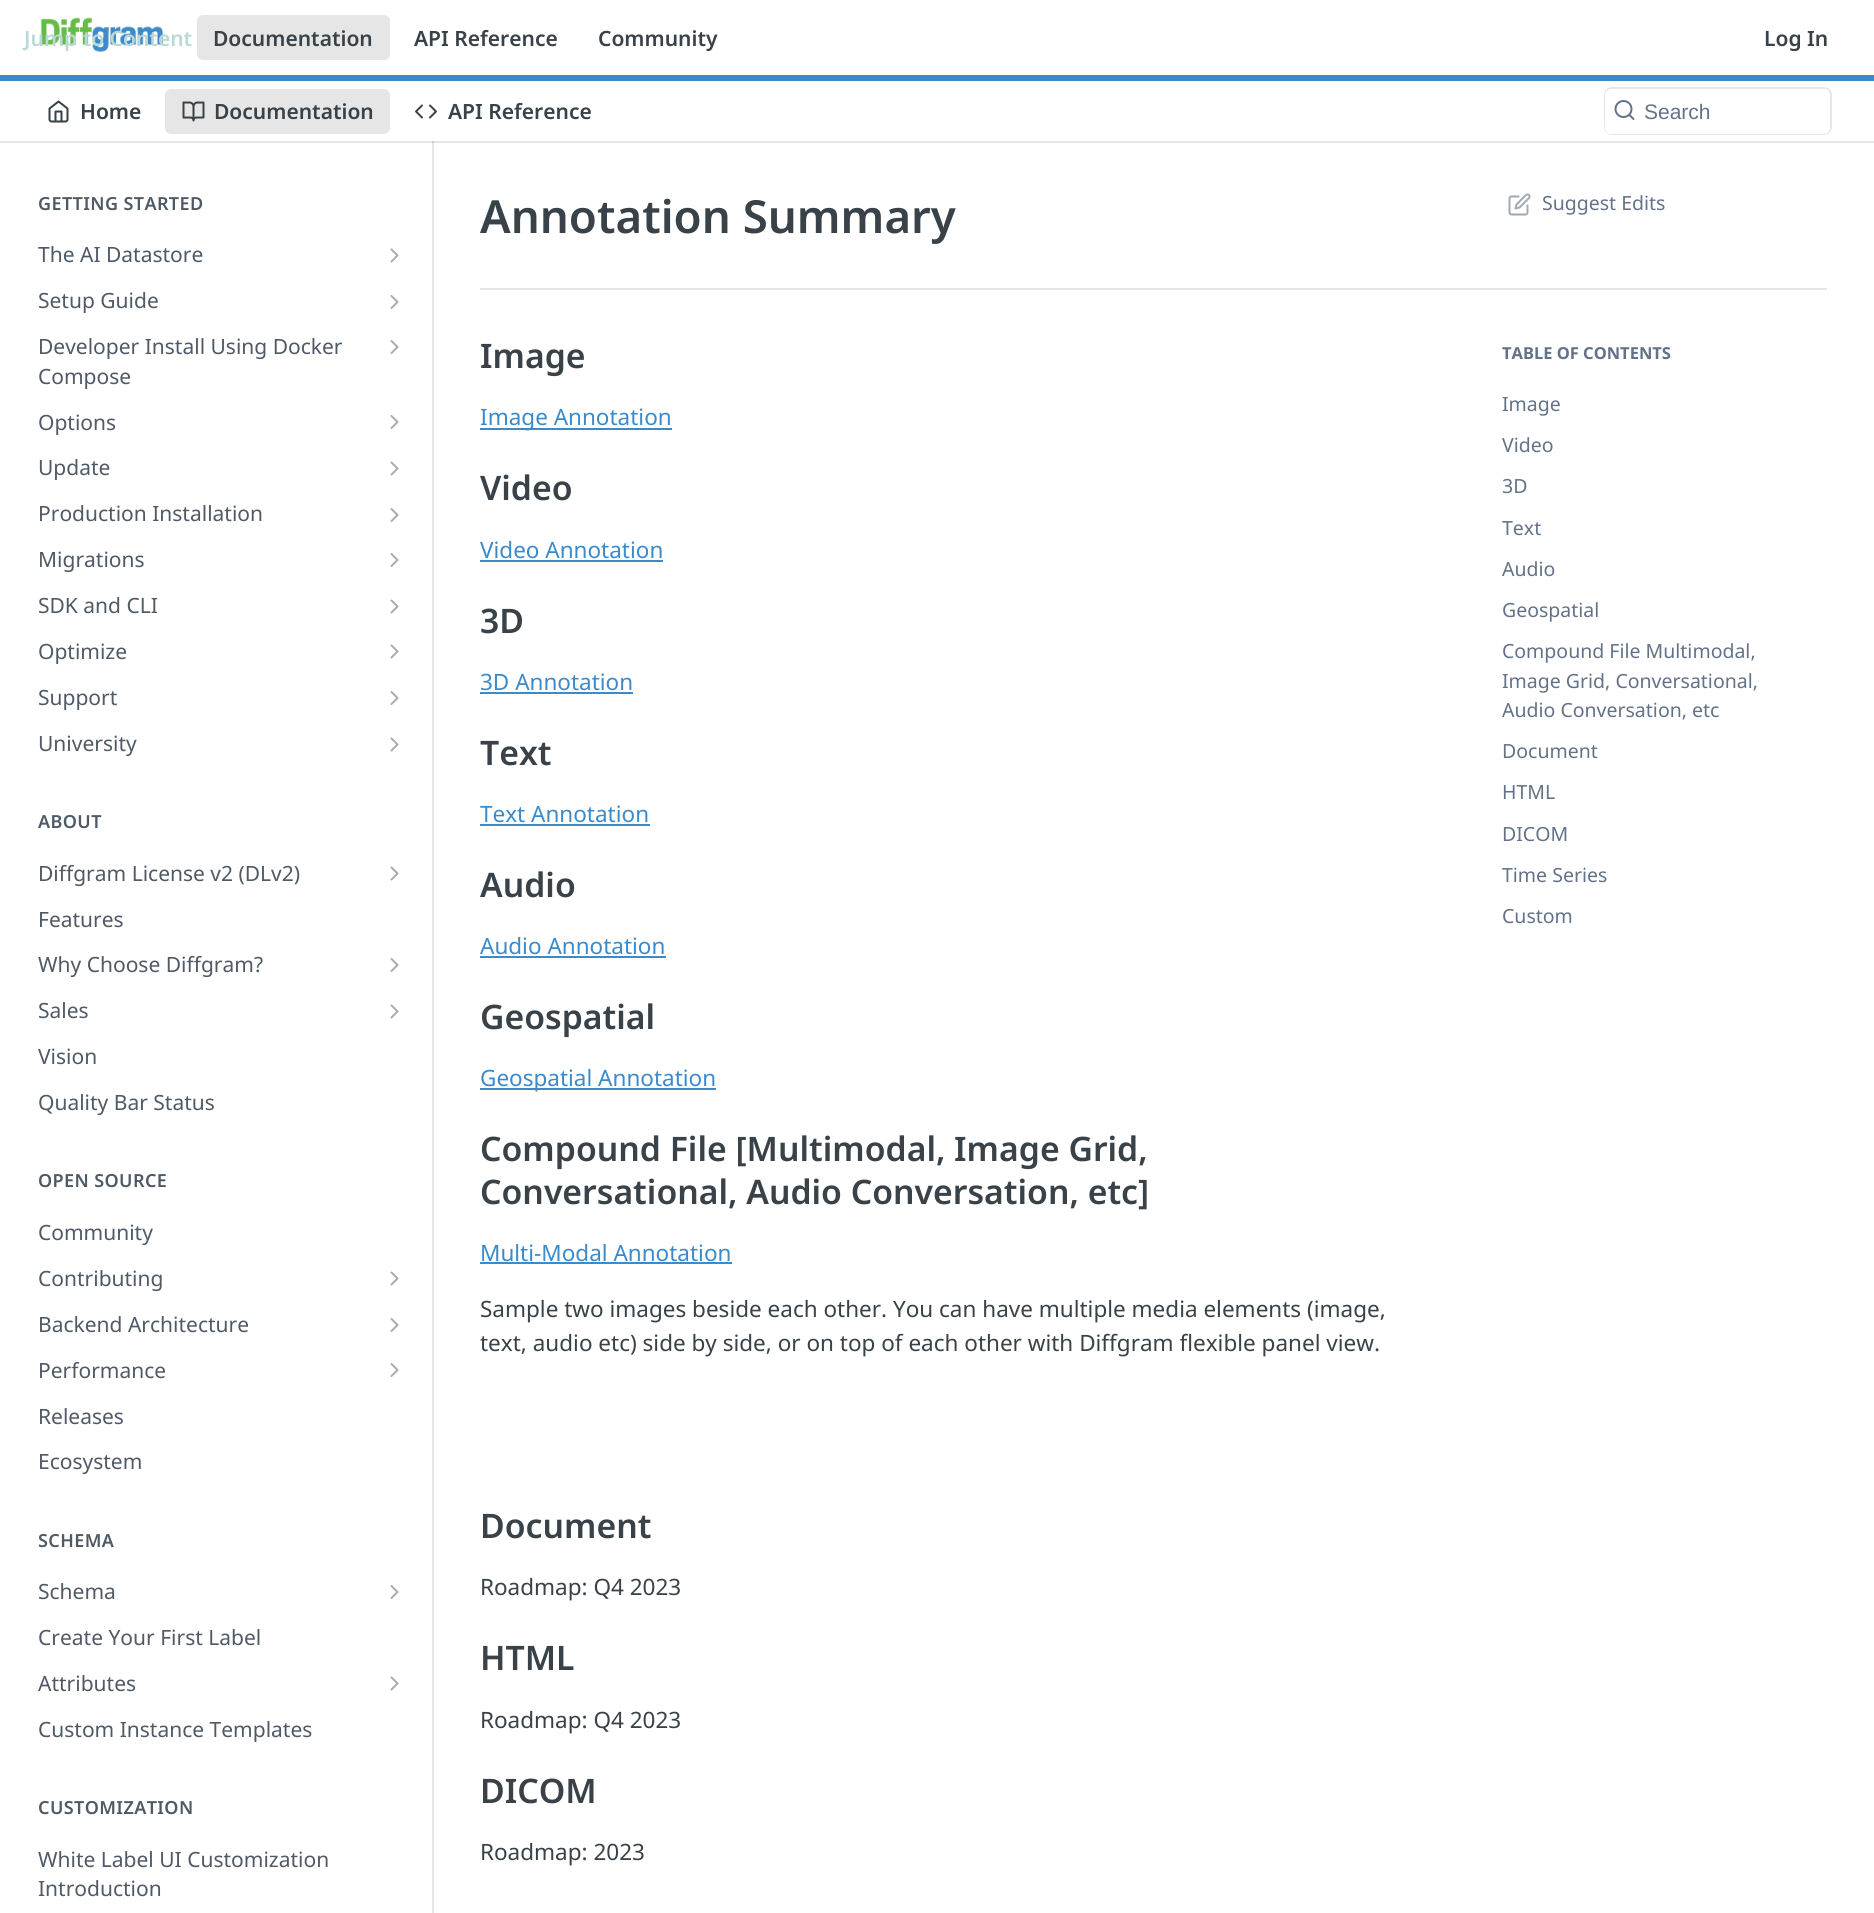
#include <cairo/cairo.h>
#include <math.h>
#include <stddef.h>

typedef struct { double x, y; const char *s; } line_t;
typedef struct { double x, y, w, h; unsigned color; } box_t;
static cairo_t *cr;

static void rgb(unsigned color)
{
	cairo_set_source_rgb(cr, (color >> 16) / 255.0, (color >> 8 & 255) / 255.0, (color & 255) / 255.0);
}

static void tracked(double x, double y, const char *s, double letter, double word)
{
	cairo_move_to(cr, x, y);
	while (*s) {
		char ch[5] = {0};
		int n = 0;
		do ch[n++] = *s++; while ((*s & 0xC0) == 0x80);
		cairo_show_text(cr, ch);
		cairo_rel_move_to(cr, letter + word * (*ch == ' '), 0);
	}
}

static void rrect(double x, double y, double w, double h, double r)
{
	cairo_new_sub_path(cr);
	cairo_arc(cr, x + w - r, y + h - r, r, 0, M_PI / 2);
	cairo_arc(cr, x + r, y + h - r, r, M_PI / 2, M_PI);
	cairo_arc(cr, x + r, y + r, r, M_PI, 1.5 * M_PI);
	cairo_arc(cr, x + w - r, y + r, r, 1.5 * M_PI, 2 * M_PI);
	cairo_close_path(cr);
}

static void image(const char *path, double x, double y, double w, double h)
{
	cairo_surface_t *image = cairo_image_surface_create_from_png(path);
	cairo_save(cr);
	cairo_set_source_surface(cr, image, x, y);
	cairo_rectangle(cr, x, y, w, h);
	cairo_fill(cr);
	cairo_restore(cr);
	cairo_surface_destroy(image);
}

int main(void) {
	cairo_surface_t *surface = cairo_image_surface_create(CAIRO_FORMAT_RGB24, 1874, 1913);
	cr = cairo_create(surface);
	cairo_font_options_t *options = cairo_font_options_create();
	cairo_font_options_set_hint_metrics(options, CAIRO_HINT_METRICS_OFF);
	cairo_font_options_set_hint_style(options, CAIRO_HINT_STYLE_NONE);
	cairo_set_font_options(cr, options);
	cairo_set_miter_limit(cr, 4);
	rgb(0xffffff);
	cairo_paint(cr);
	rgb(0xe6e6e6);
	cairo_rectangle(cr, 0, 141, 1874, 2);
	cairo_fill(cr);
	rgb(0x3b8aca);
	cairo_rectangle(cr, 0, 75, 1874, 6);
	cairo_fill(cr);
	image("img/1.png", 39, 17, 125, 35);
	rgb(0xe6e6e6);
	rrect(197, 15, 193, 45, 6);
	cairo_fill(cr);
	image("img/2.png", 48, 100, 21, 23);
	rrect(165, 89, 225, 45, 6);
	cairo_fill(cr);
	image("img/3.png", 182, 101, 23, 21);
	image("img/4.png", 415, 104, 22, 15);
	rrect(1605, 88, 226, 46, 7);
	cairo_stroke(cr);
	rgb(0xffffff);
	rrect(1605, 89, 225, 45, 6);
	cairo_fill(cr);
	image("img/5.png", 1614, 100, 21, 20);
	rgb(0xe6e6e6);
	cairo_rectangle(cr, 432, 141, 2, 1772);
	cairo_fill(cr);
	rgb(0xcfcfcf);
	cairo_rectangle(cr, 432, 141, 2, 2);
	cairo_fill(cr);
	image("img/6.png", 390, 248, 9, 15);
	image("img/7.png", 390, 295, 9, 14);
	image("img/7.png", 390, 340, 9, 14);
	image("img/7.png", 390, 415, 9, 14);
	image("img/6.png", 390, 461, 9, 15);
	image("img/7.png", 390, 508, 9, 14);
	image("img/7.png", 390, 553, 9, 14);
	image("img/6.png", 390, 599, 9, 15);
	image("img/6.png", 390, 644, 9, 15);
	image("img/7.png", 390, 691, 9, 14);
	image("img/6.png", 390, 737, 9, 15);
	image("img/6.png", 390, 866, 9, 15);
	image("img/7.png", 390, 958, 9, 14);
	image("img/6.png", 390, 1004, 9, 15);
	image("img/6.png", 390, 1271, 9, 15);
	image("img/7.png", 390, 1318, 9, 14);
	image("img/7.png", 390, 1363, 9, 14);
	image("img/7.png", 390, 1585, 9, 14);
	image("img/6.png", 390, 1676, 9, 15);
	rgb(0xe6e6e6);
	cairo_rectangle(cr, 480, 288, 1347, 2);
	cairo_fill(cr);
	image("img/8.png", 1508, 193, 23, 23);
	{
		static const box_t items[] = {
			{480, 428, 192, 2, 0x3b8aca},
			{480, 560, 183, 2, 0x3b8aca},
			{480, 692, 153, 2, 0x3b8aca},
			{480, 824, 170, 2, 0x3b8aca},
			{480, 956, 186, 2, 0x3b8aca},
			{480, 1088, 236, 2, 0x3b8aca},
			{480, 1262, 252, 2, 0x3b8aca},
		};
		for (size_t i = 0; i < sizeof items / sizeof *items; i++) {
			rgb(items[i].color);
			cairo_rectangle(cr, items[i].x, items[i].y, items[i].w, items[i].h);
			cairo_fill(cr);
		}
	}
	cairo_select_font_face(cr, "Noto Sans SemiBold", CAIRO_FONT_SLANT_NORMAL, CAIRO_FONT_WEIGHT_NORMAL);
	cairo_set_font_size(cr, 21);
	rgb(0xb9d9d6);
	cairo_move_to(cr, 24, 46);
	cairo_show_text(cr, "Jump to Content");
	rgb(0x384248);
	{
		static const line_t items[] = {
			{213, 46, "Documentation"},
			{414, 46, "API Reference"},
			{598, 46, "Community"},
			{1764, 46, "Log In"},
			{80, 119, "Home"},
			{214, 119, "Documentation"},
			{448, 119, "API Reference"},
		};
		for (size_t i = 0; i < sizeof items / sizeof *items; i++) {
			cairo_move_to(cr, items[i].x, items[i].y);
			cairo_show_text(cr, items[i].s);
		}
	}
	cairo_select_font_face(cr, "Liberation Sans", CAIRO_FONT_SLANT_NORMAL, CAIRO_FONT_WEIGHT_NORMAL);
	rgb(0x637288);
	cairo_move_to(cr, 1644, 119);
	cairo_show_text(cr, "Search");
	cairo_select_font_face(cr, "Noto Sans SemiBold", CAIRO_FONT_SLANT_NORMAL, CAIRO_FONT_WEIGHT_NORMAL);
	cairo_set_font_size(cr, 18);
	rgb(0x4f5a66);
	tracked(38, 210, "GETTING STARTED", 0.4, 0);
	cairo_select_font_face(cr, "Noto Sans", CAIRO_FONT_SLANT_NORMAL, CAIRO_FONT_WEIGHT_NORMAL);
	cairo_set_font_size(cr, 21);
	{
		static const line_t items[] = {
			{38, 262, "The AI Datastore"},
			{38, 308, "Setup Guide"},
			{38, 354, "Developer Install Using Docker"},
			{38, 384, "Compose"},
			{38, 430, "Options"},
			{38, 475, "Update"},
			{38, 521, "Production Installation"},
			{38, 567, "Migrations"},
			{38, 613, "SDK and CLI"},
			{38, 659, "Optimize"},
			{38, 705, "Support"},
			{38, 751, "University"},
		};
		for (size_t i = 0; i < sizeof items / sizeof *items; i++) {
			cairo_move_to(cr, items[i].x, items[i].y);
			cairo_show_text(cr, items[i].s);
		}
	}
	cairo_select_font_face(cr, "Noto Sans SemiBold", CAIRO_FONT_SLANT_NORMAL, CAIRO_FONT_WEIGHT_NORMAL);
	cairo_set_font_size(cr, 18);
	tracked(38, 828, "ABOUT", 0.4, 0);
	cairo_select_font_face(cr, "Noto Sans", CAIRO_FONT_SLANT_NORMAL, CAIRO_FONT_WEIGHT_NORMAL);
	cairo_set_font_size(cr, 21);
	{
		static const line_t items[] = {
			{38, 881, "Diffgram License v2 (DLv2)"},
			{38, 927, "Features"},
			{38, 972, "Why Choose Diffgram?"},
			{38, 1018, "Sales"},
			{38, 1064, "Vision"},
			{38, 1110, "Quality Bar Status"},
		};
		for (size_t i = 0; i < sizeof items / sizeof *items; i++) {
			cairo_move_to(cr, items[i].x, items[i].y);
			cairo_show_text(cr, items[i].s);
		}
	}
	cairo_select_font_face(cr, "Noto Sans SemiBold", CAIRO_FONT_SLANT_NORMAL, CAIRO_FONT_WEIGHT_NORMAL);
	cairo_set_font_size(cr, 18);
	tracked(38, 1187, "OPEN SOURCE", 0.4, 0);
	cairo_select_font_face(cr, "Noto Sans", CAIRO_FONT_SLANT_NORMAL, CAIRO_FONT_WEIGHT_NORMAL);
	cairo_set_font_size(cr, 21);
	{
		static const line_t items[] = {
			{38, 1240, "Community"},
			{38, 1286, "Contributing"},
			{38, 1332, "Backend Architecture"},
			{38, 1378, "Performance"},
			{38, 1424, "Releases"},
			{38, 1469, "Ecosystem"},
		};
		for (size_t i = 0; i < sizeof items / sizeof *items; i++) {
			cairo_move_to(cr, items[i].x, items[i].y);
			cairo_show_text(cr, items[i].s);
		}
	}
	cairo_select_font_face(cr, "Noto Sans SemiBold", CAIRO_FONT_SLANT_NORMAL, CAIRO_FONT_WEIGHT_NORMAL);
	cairo_set_font_size(cr, 18);
	tracked(38, 1547, "SCHEMA", 0.4, 0);
	cairo_select_font_face(cr, "Noto Sans", CAIRO_FONT_SLANT_NORMAL, CAIRO_FONT_WEIGHT_NORMAL);
	cairo_set_font_size(cr, 21);
	{
		static const line_t items[] = {
			{38, 1599, "Schema"},
			{38, 1645, "Create Your First Label"},
			{38, 1691, "Attributes"},
			{38, 1737, "Custom Instance Templates"},
		};
		for (size_t i = 0; i < sizeof items / sizeof *items; i++) {
			cairo_move_to(cr, items[i].x, items[i].y);
			cairo_show_text(cr, items[i].s);
		}
	}
	cairo_select_font_face(cr, "Noto Sans SemiBold", CAIRO_FONT_SLANT_NORMAL, CAIRO_FONT_WEIGHT_NORMAL);
	cairo_set_font_size(cr, 18);
	tracked(38, 1814, "CUSTOMIZATION", 0.4, 0);
	cairo_select_font_face(cr, "Noto Sans", CAIRO_FONT_SLANT_NORMAL, CAIRO_FONT_WEIGHT_NORMAL);
	cairo_set_font_size(cr, 21);
	cairo_move_to(cr, 38, 1867);
	cairo_show_text(cr, "White Label UI Customization");
	cairo_move_to(cr, 38, 1896);
	cairo_show_text(cr, "Introduction");
	cairo_select_font_face(cr, "Noto Sans SemiBold", CAIRO_FONT_SLANT_NORMAL, CAIRO_FONT_WEIGHT_NORMAL);
	cairo_set_font_size(cr, 45.6);
	rgb(0x384248);
	cairo_move_to(cr, 480, 233);
	cairo_show_text(cr, "Annotation Summary");
	cairo_select_font_face(cr, "Noto Sans", CAIRO_FONT_SLANT_NORMAL, CAIRO_FONT_WEIGHT_NORMAL);
	cairo_set_font_size(cr, 19.5);
	rgb(0x637288);
	cairo_move_to(cr, 1542, 210);
	cairo_show_text(cr, "Suggest Edits");
	cairo_select_font_face(cr, "Noto Sans SemiBold", CAIRO_FONT_SLANT_NORMAL, CAIRO_FONT_WEIGHT_NORMAL);
	cairo_set_font_size(cr, 33.75);
	rgb(0x384248);
	cairo_move_to(cr, 480, 368);
	cairo_show_text(cr, "Image");
	cairo_select_font_face(cr, "Noto Sans", CAIRO_FONT_SLANT_NORMAL, CAIRO_FONT_WEIGHT_NORMAL);
	cairo_set_font_size(cr, 22.5);
	rgb(0x3b8aca);
	cairo_move_to(cr, 480, 425);
	cairo_show_text(cr, "Image Annotation");
	cairo_select_font_face(cr, "Noto Sans SemiBold", CAIRO_FONT_SLANT_NORMAL, CAIRO_FONT_WEIGHT_NORMAL);
	cairo_set_font_size(cr, 33.75);
	rgb(0x384248);
	cairo_move_to(cr, 480, 500);
	cairo_show_text(cr, "Video");
	cairo_select_font_face(cr, "Noto Sans", CAIRO_FONT_SLANT_NORMAL, CAIRO_FONT_WEIGHT_NORMAL);
	cairo_set_font_size(cr, 22.5);
	rgb(0x3b8aca);
	cairo_move_to(cr, 480, 558);
	cairo_show_text(cr, "Video Annotation");
	cairo_select_font_face(cr, "Noto Sans SemiBold", CAIRO_FONT_SLANT_NORMAL, CAIRO_FONT_WEIGHT_NORMAL);
	cairo_set_font_size(cr, 33.75);
	rgb(0x384248);
	cairo_move_to(cr, 480, 633);
	cairo_show_text(cr, "3D");
	cairo_select_font_face(cr, "Noto Sans", CAIRO_FONT_SLANT_NORMAL, CAIRO_FONT_WEIGHT_NORMAL);
	cairo_set_font_size(cr, 22.5);
	rgb(0x3b8aca);
	cairo_move_to(cr, 480, 690);
	cairo_show_text(cr, "3D Annotation");
	cairo_select_font_face(cr, "Noto Sans SemiBold", CAIRO_FONT_SLANT_NORMAL, CAIRO_FONT_WEIGHT_NORMAL);
	cairo_set_font_size(cr, 33.75);
	rgb(0x384248);
	cairo_move_to(cr, 480, 765);
	cairo_show_text(cr, "Text");
	cairo_select_font_face(cr, "Noto Sans", CAIRO_FONT_SLANT_NORMAL, CAIRO_FONT_WEIGHT_NORMAL);
	cairo_set_font_size(cr, 22.5);
	rgb(0x3b8aca);
	cairo_move_to(cr, 480, 822);
	cairo_show_text(cr, "Text Annotation");
	cairo_select_font_face(cr, "Noto Sans SemiBold", CAIRO_FONT_SLANT_NORMAL, CAIRO_FONT_WEIGHT_NORMAL);
	cairo_set_font_size(cr, 33.75);
	rgb(0x384248);
	cairo_move_to(cr, 480, 897);
	cairo_show_text(cr, "Audio");
	cairo_select_font_face(cr, "Noto Sans", CAIRO_FONT_SLANT_NORMAL, CAIRO_FONT_WEIGHT_NORMAL);
	cairo_set_font_size(cr, 22.5);
	rgb(0x3b8aca);
	cairo_move_to(cr, 480, 954);
	cairo_show_text(cr, "Audio Annotation");
	cairo_select_font_face(cr, "Noto Sans SemiBold", CAIRO_FONT_SLANT_NORMAL, CAIRO_FONT_WEIGHT_NORMAL);
	cairo_set_font_size(cr, 33.75);
	rgb(0x384248);
	cairo_move_to(cr, 480, 1029);
	cairo_show_text(cr, "Geospatial");
	cairo_select_font_face(cr, "Noto Sans", CAIRO_FONT_SLANT_NORMAL, CAIRO_FONT_WEIGHT_NORMAL);
	cairo_set_font_size(cr, 22.5);
	rgb(0x3b8aca);
	cairo_move_to(cr, 480, 1086);
	cairo_show_text(cr, "Geospatial Annotation");
	cairo_select_font_face(cr, "Noto Sans SemiBold", CAIRO_FONT_SLANT_NORMAL, CAIRO_FONT_WEIGHT_NORMAL);
	cairo_set_font_size(cr, 33.75);
	rgb(0x384248);
	cairo_move_to(cr, 480, 1161);
	cairo_show_text(cr, "Compound File [Multimodal, Image Grid,");
	cairo_move_to(cr, 480, 1204);
	cairo_show_text(cr, "Conversational, Audio Conversation, etc]");
	cairo_select_font_face(cr, "Noto Sans", CAIRO_FONT_SLANT_NORMAL, CAIRO_FONT_WEIGHT_NORMAL);
	cairo_set_font_size(cr, 22.5);
	rgb(0x3b8aca);
	cairo_move_to(cr, 480, 1261);
	cairo_show_text(cr, "Multi-Modal Annotation");
	rgb(0x384248);
	cairo_move_to(cr, 480, 1317);
	cairo_show_text(cr, "Sample two images beside each other. You can have multiple media elements (image,");
	cairo_move_to(cr, 480, 1351);
	cairo_show_text(cr, "text, audio etc) side by side, or on top of each other with Diffgram flexible panel view.");
	cairo_select_font_face(cr, "Noto Sans SemiBold", CAIRO_FONT_SLANT_NORMAL, CAIRO_FONT_WEIGHT_NORMAL);
	cairo_set_font_size(cr, 33.75);
	cairo_move_to(cr, 480, 1538);
	cairo_show_text(cr, "Document");
	cairo_select_font_face(cr, "Noto Sans", CAIRO_FONT_SLANT_NORMAL, CAIRO_FONT_WEIGHT_NORMAL);
	cairo_set_font_size(cr, 22.5);
	cairo_move_to(cr, 480, 1595);
	cairo_show_text(cr, "Roadmap: Q4 2023");
	cairo_select_font_face(cr, "Noto Sans SemiBold", CAIRO_FONT_SLANT_NORMAL, CAIRO_FONT_WEIGHT_NORMAL);
	cairo_set_font_size(cr, 33.75);
	cairo_move_to(cr, 480, 1670);
	cairo_show_text(cr, "HTML");
	cairo_select_font_face(cr, "Noto Sans", CAIRO_FONT_SLANT_NORMAL, CAIRO_FONT_WEIGHT_NORMAL);
	cairo_set_font_size(cr, 22.5);
	cairo_move_to(cr, 480, 1728);
	cairo_show_text(cr, "Roadmap: Q4 2023");
	cairo_select_font_face(cr, "Noto Sans SemiBold", CAIRO_FONT_SLANT_NORMAL, CAIRO_FONT_WEIGHT_NORMAL);
	cairo_set_font_size(cr, 33.75);
	cairo_move_to(cr, 480, 1803);
	cairo_show_text(cr, "DICOM");
	cairo_select_font_face(cr, "Noto Sans", CAIRO_FONT_SLANT_NORMAL, CAIRO_FONT_WEIGHT_NORMAL);
	cairo_set_font_size(cr, 22.5);
	cairo_move_to(cr, 480, 1860);
	cairo_show_text(cr, "Roadmap: 2023");
	cairo_select_font_face(cr, "Noto Sans", CAIRO_FONT_SLANT_NORMAL, CAIRO_FONT_WEIGHT_BOLD);
	cairo_set_font_size(cr, 16.5);
	rgb(0x637288);
	cairo_move_to(cr, 1502, 359);
	cairo_show_text(cr, "TABLE OF CONTENTS");
	cairo_select_font_face(cr, "Noto Sans", CAIRO_FONT_SLANT_NORMAL, CAIRO_FONT_WEIGHT_NORMAL);
	cairo_set_font_size(cr, 19.5);
	{
		static const line_t items[] = {
			{1502, 411, "Image"},
			{1502, 452, "Video"},
			{1502, 493, "3D"},
			{1502, 535, "Text"},
			{1502, 576, "Audio"},
			{1502, 617, "Geospatial"},
			{1502, 658, "Compound File Multimodal,"},
			{1502, 688, "Image Grid, Conversational,"},
			{1502, 717, "Audio Conversation, etc"},
			{1502, 758, "Document"},
			{1502, 799, "HTML"},
			{1502, 841, "DICOM"},
			{1502, 882, "Time Series"},
			{1502, 923, "Custom"},
		};
		for (size_t i = 0; i < sizeof items / sizeof *items; i++) {
			cairo_move_to(cr, items[i].x, items[i].y);
			cairo_show_text(cr, items[i].s);
		}
	}
	cairo_surface_write_to_png(surface, "page.png");
	cairo_font_options_destroy(options);
	cairo_destroy(cr);
	cairo_surface_destroy(surface);
	return 0;
}
